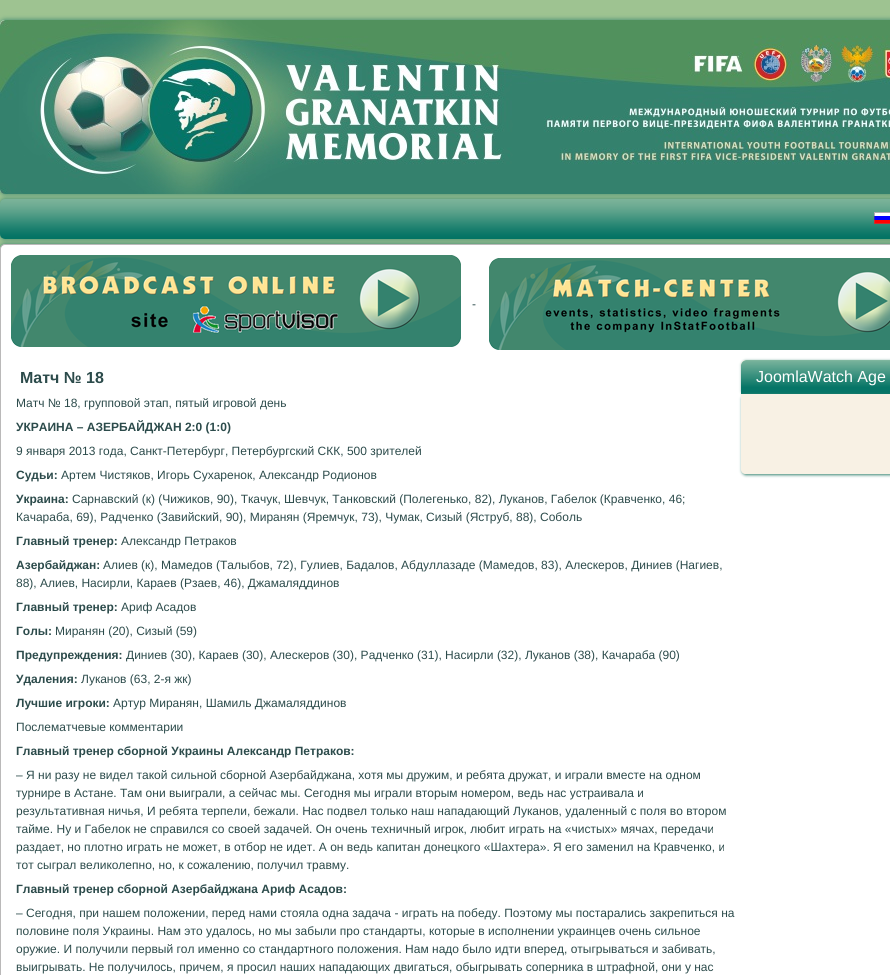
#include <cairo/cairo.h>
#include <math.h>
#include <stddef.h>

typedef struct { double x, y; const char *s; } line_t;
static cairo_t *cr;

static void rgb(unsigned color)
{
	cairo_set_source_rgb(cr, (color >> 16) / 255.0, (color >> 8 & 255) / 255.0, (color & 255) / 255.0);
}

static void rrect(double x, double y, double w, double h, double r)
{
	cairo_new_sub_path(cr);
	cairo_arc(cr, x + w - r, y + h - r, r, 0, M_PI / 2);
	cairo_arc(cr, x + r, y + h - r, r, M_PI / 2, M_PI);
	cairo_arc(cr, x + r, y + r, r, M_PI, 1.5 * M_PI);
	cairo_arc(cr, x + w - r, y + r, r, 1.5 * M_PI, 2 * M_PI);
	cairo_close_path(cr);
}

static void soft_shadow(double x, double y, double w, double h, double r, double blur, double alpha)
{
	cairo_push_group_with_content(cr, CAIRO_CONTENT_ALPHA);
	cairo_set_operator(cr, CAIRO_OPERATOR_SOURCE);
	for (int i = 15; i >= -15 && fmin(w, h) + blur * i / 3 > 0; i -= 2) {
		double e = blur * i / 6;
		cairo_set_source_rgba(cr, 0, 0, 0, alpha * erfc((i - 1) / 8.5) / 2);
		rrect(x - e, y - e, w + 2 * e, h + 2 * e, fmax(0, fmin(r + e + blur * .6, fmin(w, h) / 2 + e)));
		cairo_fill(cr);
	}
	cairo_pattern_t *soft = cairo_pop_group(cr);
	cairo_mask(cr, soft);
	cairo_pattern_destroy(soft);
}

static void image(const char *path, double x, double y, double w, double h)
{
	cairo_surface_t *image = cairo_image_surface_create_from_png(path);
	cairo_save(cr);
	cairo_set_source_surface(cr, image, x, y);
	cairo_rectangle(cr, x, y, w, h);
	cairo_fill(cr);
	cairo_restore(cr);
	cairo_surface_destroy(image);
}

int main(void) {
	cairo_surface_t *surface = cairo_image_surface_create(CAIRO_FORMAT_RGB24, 890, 975);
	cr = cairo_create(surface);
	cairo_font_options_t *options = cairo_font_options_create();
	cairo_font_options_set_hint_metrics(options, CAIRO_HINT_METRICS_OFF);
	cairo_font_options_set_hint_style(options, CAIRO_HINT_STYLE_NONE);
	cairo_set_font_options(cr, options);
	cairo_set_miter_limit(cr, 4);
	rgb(0x9ec391);
	cairo_paint(cr);
	rgb(0x34826e);
	soft_shadow(0, 20, 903, 174, 5, 2.5, 1);
	image("img/1.png", 0, 20, 890, 174);
	soft_shadow(0, 199, 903, 40, 5, 2.5, 1);
	image("img/2.png", 0, 199, 890, 40);
	image("img/3.png", 874, 212, 16, 12);
	soft_shadow(0, 244, 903, 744, 5, 2.5, 1);
	rgb(0xffffff);
	cairo_new_path(cr);
	cairo_move_to(cr, 5, 244.5);
	cairo_line_to(cr, 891, 244.5);
	cairo_curve_to(cr, 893.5, 244.5, 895.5, 246.5, 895.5, 249);
	cairo_line_to(cr, 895.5, 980.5);
	cairo_line_to(cr, 0.5, 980.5);
	cairo_line_to(cr, 0.5, 249);
	cairo_curve_to(cr, 0.5, 246.5, 2.5, 244.5, 5, 244.5);
	cairo_close_path(cr);
	cairo_fill_preserve(cr);
	rgb(0xbab9b9);
	cairo_set_line_width(cr, 1);
	cairo_stroke(cr);
	image("img/4.png", 11, 255, 450, 92);
	image("img/5.png", 489, 258, 401, 92);
	rgb(0x34826e);
	soft_shadow(742, 361, 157, 34, 4, 1.5, 1);
	rgb(0xf8f1e4);
	cairo_new_path(cr);
	cairo_move_to(cr, 745, 360);
	cairo_line_to(cr, 890, 360);
	cairo_curve_to(cr, 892, 360, 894, 362, 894, 364);
	cairo_line_to(cr, 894, 394);
	cairo_line_to(cr, 741, 394);
	cairo_line_to(cr, 741, 364);
	cairo_curve_to(cr, 741, 362, 743, 360, 745, 360);
	cairo_close_path(cr);
	cairo_fill(cr);
	image("img/6.png", 741, 360, 149, 34);
	rgb(0x34826e);
	soft_shadow(742, 395, 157, 80, 4, 1.5, 1);
	rgb(0xf8f1e4);
	cairo_new_path(cr);
	cairo_move_to(cr, 741, 394);
	cairo_line_to(cr, 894, 394);
	cairo_line_to(cr, 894, 470);
	cairo_curve_to(cr, 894, 472, 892, 474, 890, 474);
	cairo_line_to(cr, 745, 474);
	cairo_curve_to(cr, 743, 474, 741, 472, 741, 470);
	cairo_close_path(cr);
	cairo_fill(cr);
	cairo_select_font_face(cr, "Liberation Sans", CAIRO_FONT_SLANT_NORMAL, CAIRO_FONT_WEIGHT_NORMAL);
	cairo_set_font_size(cr, 12);
	rgb(0x2c4b4b);
	cairo_move_to(cr, 472, 308);
	cairo_show_text(cr, "-");
	cairo_select_font_face(cr, "Liberation Sans", CAIRO_FONT_SLANT_NORMAL, CAIRO_FONT_WEIGHT_BOLD);
	cairo_set_font_size(cr, 16);
	cairo_move_to(cr, 20, 383);
	cairo_show_text(cr, "Матч № 18");
	cairo_select_font_face(cr, "Liberation Sans", CAIRO_FONT_SLANT_NORMAL, CAIRO_FONT_WEIGHT_NORMAL);
	cairo_set_font_size(cr, 12);
	cairo_move_to(cr, 16, 407);
	cairo_show_text(cr, "Матч № 18, групповой этап, пятый игровой день");
	cairo_select_font_face(cr, "Liberation Sans", CAIRO_FONT_SLANT_NORMAL, CAIRO_FONT_WEIGHT_BOLD);
	cairo_move_to(cr, 16, 431);
	cairo_show_text(cr, "УКРАИНА – АЗЕРБАЙДЖАН 2:0 (1:0)");
	cairo_select_font_face(cr, "Liberation Sans", CAIRO_FONT_SLANT_NORMAL, CAIRO_FONT_WEIGHT_NORMAL);
	cairo_move_to(cr, 16, 455);
	cairo_show_text(cr, "9 января 2013 года, Санкт-Петербург, Петербургский СКК, 500 зрителей");
	cairo_select_font_face(cr, "Liberation Sans", CAIRO_FONT_SLANT_NORMAL, CAIRO_FONT_WEIGHT_BOLD);
	cairo_move_to(cr, 16, 479);
	cairo_show_text(cr, "Судьи:");
	cairo_select_font_face(cr, "Liberation Sans", CAIRO_FONT_SLANT_NORMAL, CAIRO_FONT_WEIGHT_NORMAL);
	cairo_move_to(cr, 61, 479);
	cairo_show_text(cr, "Артем Чистяков, Игорь Сухаренок, Александр Родионов");
	cairo_select_font_face(cr, "Liberation Sans", CAIRO_FONT_SLANT_NORMAL, CAIRO_FONT_WEIGHT_BOLD);
	cairo_move_to(cr, 16, 503);
	cairo_show_text(cr, "Украина:");
	cairo_select_font_face(cr, "Liberation Sans", CAIRO_FONT_SLANT_NORMAL, CAIRO_FONT_WEIGHT_NORMAL);
	cairo_move_to(cr, 72, 503);
	cairo_show_text(cr, "Сарнавский (к) (Чижиков, 90), Ткачук, Шевчук, Танковский (Полегенько, 82), Луканов, Габелок (Кравченко, 46;");
	cairo_move_to(cr, 16, 521);
	cairo_show_text(cr, "Качараба, 69), Радченко (Завийский, 90), Миранян (Яремчук, 73), Чумак, Сизый (Яструб, 88), Соболь");
	cairo_select_font_face(cr, "Liberation Sans", CAIRO_FONT_SLANT_NORMAL, CAIRO_FONT_WEIGHT_BOLD);
	cairo_move_to(cr, 16, 545);
	cairo_show_text(cr, "Главный тренер:");
	cairo_select_font_face(cr, "Liberation Sans", CAIRO_FONT_SLANT_NORMAL, CAIRO_FONT_WEIGHT_NORMAL);
	cairo_move_to(cr, 121, 545);
	cairo_show_text(cr, "Александр Петраков");
	cairo_select_font_face(cr, "Liberation Sans", CAIRO_FONT_SLANT_NORMAL, CAIRO_FONT_WEIGHT_BOLD);
	cairo_move_to(cr, 16, 569);
	cairo_show_text(cr, "Азербайджан:");
	cairo_select_font_face(cr, "Liberation Sans", CAIRO_FONT_SLANT_NORMAL, CAIRO_FONT_WEIGHT_NORMAL);
	cairo_move_to(cr, 103, 569);
	cairo_show_text(cr, "Алиев (к), Мамедов (Талыбов, 72), Гулиев, Бадалов, Абдуллазаде (Мамедов, 83), Алескеров, Диниев (Нагиев,");
	cairo_move_to(cr, 16, 587);
	cairo_show_text(cr, "88), Алиев, Насирли, Караев (Рзаев, 46), Джамаляддинов");
	cairo_select_font_face(cr, "Liberation Sans", CAIRO_FONT_SLANT_NORMAL, CAIRO_FONT_WEIGHT_BOLD);
	cairo_move_to(cr, 16, 611);
	cairo_show_text(cr, "Главный тренер:");
	cairo_select_font_face(cr, "Liberation Sans", CAIRO_FONT_SLANT_NORMAL, CAIRO_FONT_WEIGHT_NORMAL);
	cairo_move_to(cr, 121, 611);
	cairo_show_text(cr, "Ариф Асадов");
	cairo_select_font_face(cr, "Liberation Sans", CAIRO_FONT_SLANT_NORMAL, CAIRO_FONT_WEIGHT_BOLD);
	cairo_move_to(cr, 16, 635);
	cairo_show_text(cr, "Голы:");
	cairo_select_font_face(cr, "Liberation Sans", CAIRO_FONT_SLANT_NORMAL, CAIRO_FONT_WEIGHT_NORMAL);
	cairo_move_to(cr, 55, 635);
	cairo_show_text(cr, "Миранян (20), Сизый (59)");
	cairo_select_font_face(cr, "Liberation Sans", CAIRO_FONT_SLANT_NORMAL, CAIRO_FONT_WEIGHT_BOLD);
	cairo_move_to(cr, 16, 659);
	cairo_show_text(cr, "Предупреждения:");
	cairo_select_font_face(cr, "Liberation Sans", CAIRO_FONT_SLANT_NORMAL, CAIRO_FONT_WEIGHT_NORMAL);
	cairo_move_to(cr, 126, 659);
	cairo_show_text(cr, "Диниев (30), Караев (30), Алескеров (30), Радченко (31), Насирли (32), Луканов (38), Качараба (90)");
	cairo_select_font_face(cr, "Liberation Sans", CAIRO_FONT_SLANT_NORMAL, CAIRO_FONT_WEIGHT_BOLD);
	cairo_move_to(cr, 16, 683);
	cairo_show_text(cr, "Удаления:");
	cairo_select_font_face(cr, "Liberation Sans", CAIRO_FONT_SLANT_NORMAL, CAIRO_FONT_WEIGHT_NORMAL);
	cairo_move_to(cr, 81, 683);
	cairo_show_text(cr, "Луканов (63, 2-я жк)");
	cairo_select_font_face(cr, "Liberation Sans", CAIRO_FONT_SLANT_NORMAL, CAIRO_FONT_WEIGHT_BOLD);
	cairo_move_to(cr, 16, 707);
	cairo_show_text(cr, "Лучшие игроки:");
	cairo_select_font_face(cr, "Liberation Sans", CAIRO_FONT_SLANT_NORMAL, CAIRO_FONT_WEIGHT_NORMAL);
	cairo_move_to(cr, 113, 707);
	cairo_show_text(cr, "Артур Миранян, Шамиль Джамаляддинов");
	cairo_move_to(cr, 16, 731);
	cairo_show_text(cr, "Послематчевые комментарии");
	cairo_select_font_face(cr, "Liberation Sans", CAIRO_FONT_SLANT_NORMAL, CAIRO_FONT_WEIGHT_BOLD);
	cairo_move_to(cr, 16, 755);
	cairo_show_text(cr, "Главный тренер сборной Украины Александр Петраков:");
	cairo_select_font_face(cr, "Liberation Sans", CAIRO_FONT_SLANT_NORMAL, CAIRO_FONT_WEIGHT_NORMAL);
	{
		static const line_t items[] = {
			{16, 779, "– Я ни разу не видел такой сильной сборной Азербайджана, хотя мы дружим, и ребята дружат, и играли вместе на одном"},
			{16, 797, "турнире в Астане. Там они выиграли, а сейчас мы. Сегодня мы играли вторым номером, ведь нас устраивала и"},
			{16, 815, "результативная ничья, И ребята терпели, бежали. Нас подвел только наш нападающий Луканов, удаленный с поля во втором"},
			{16, 833, "тайме. Ну и Габелок не справился со своей задачей. Он очень техничный игрок, любит играть на «чистых» мячах, передачи"},
			{16, 851, "раздает, но плотно играть не может, в отбор не идет. А он ведь капитан донецкого «Шахтера». Я его заменил на Кравченко, и"},
			{16, 869, "тот сыграл великолепно, но, к сожалению, получил травму."},
		};
		for (size_t i = 0; i < sizeof items / sizeof *items; i++) {
			cairo_move_to(cr, items[i].x, items[i].y);
			cairo_show_text(cr, items[i].s);
		}
	}
	cairo_select_font_face(cr, "Liberation Sans", CAIRO_FONT_SLANT_NORMAL, CAIRO_FONT_WEIGHT_BOLD);
	cairo_move_to(cr, 16, 893);
	cairo_show_text(cr, "Главный тренер сборной Азербайджана Ариф Асадов:");
	cairo_select_font_face(cr, "Liberation Sans", CAIRO_FONT_SLANT_NORMAL, CAIRO_FONT_WEIGHT_NORMAL);
	{
		static const line_t items[] = {
			{16, 917, "– Сегодня, при нашем положении, перед нами стояла одна задача - играть на победу. Поэтому мы постарались закрепиться на"},
			{16, 935, "половине поля Украины. Нам это удалось, но мы забыли про стандарты, которые в исполнении украинцев очень сильное"},
			{16, 953, "оружие. И получили первый гол именно со стандартного положения. Нам надо было идти вперед, отыгрываться и забивать,"},
			{16, 971, "выигрывать. Не получилось, причем, я просил наших нападающих двигаться, обыгрывать соперника в штрафной, они у нас"},
		};
		for (size_t i = 0; i < sizeof items / sizeof *items; i++) {
			cairo_move_to(cr, items[i].x, items[i].y);
			cairo_show_text(cr, items[i].s);
		}
	}
	cairo_set_font_size(cr, 16);
	rgb(0xffffff);
	cairo_move_to(cr, 756, 382);
	cairo_show_text(cr, "JoomlaWatch Age");
	cairo_surface_write_to_png(surface, "page.png");
	cairo_font_options_destroy(options);
	cairo_destroy(cr);
	cairo_surface_destroy(surface);
	return 0;
}
